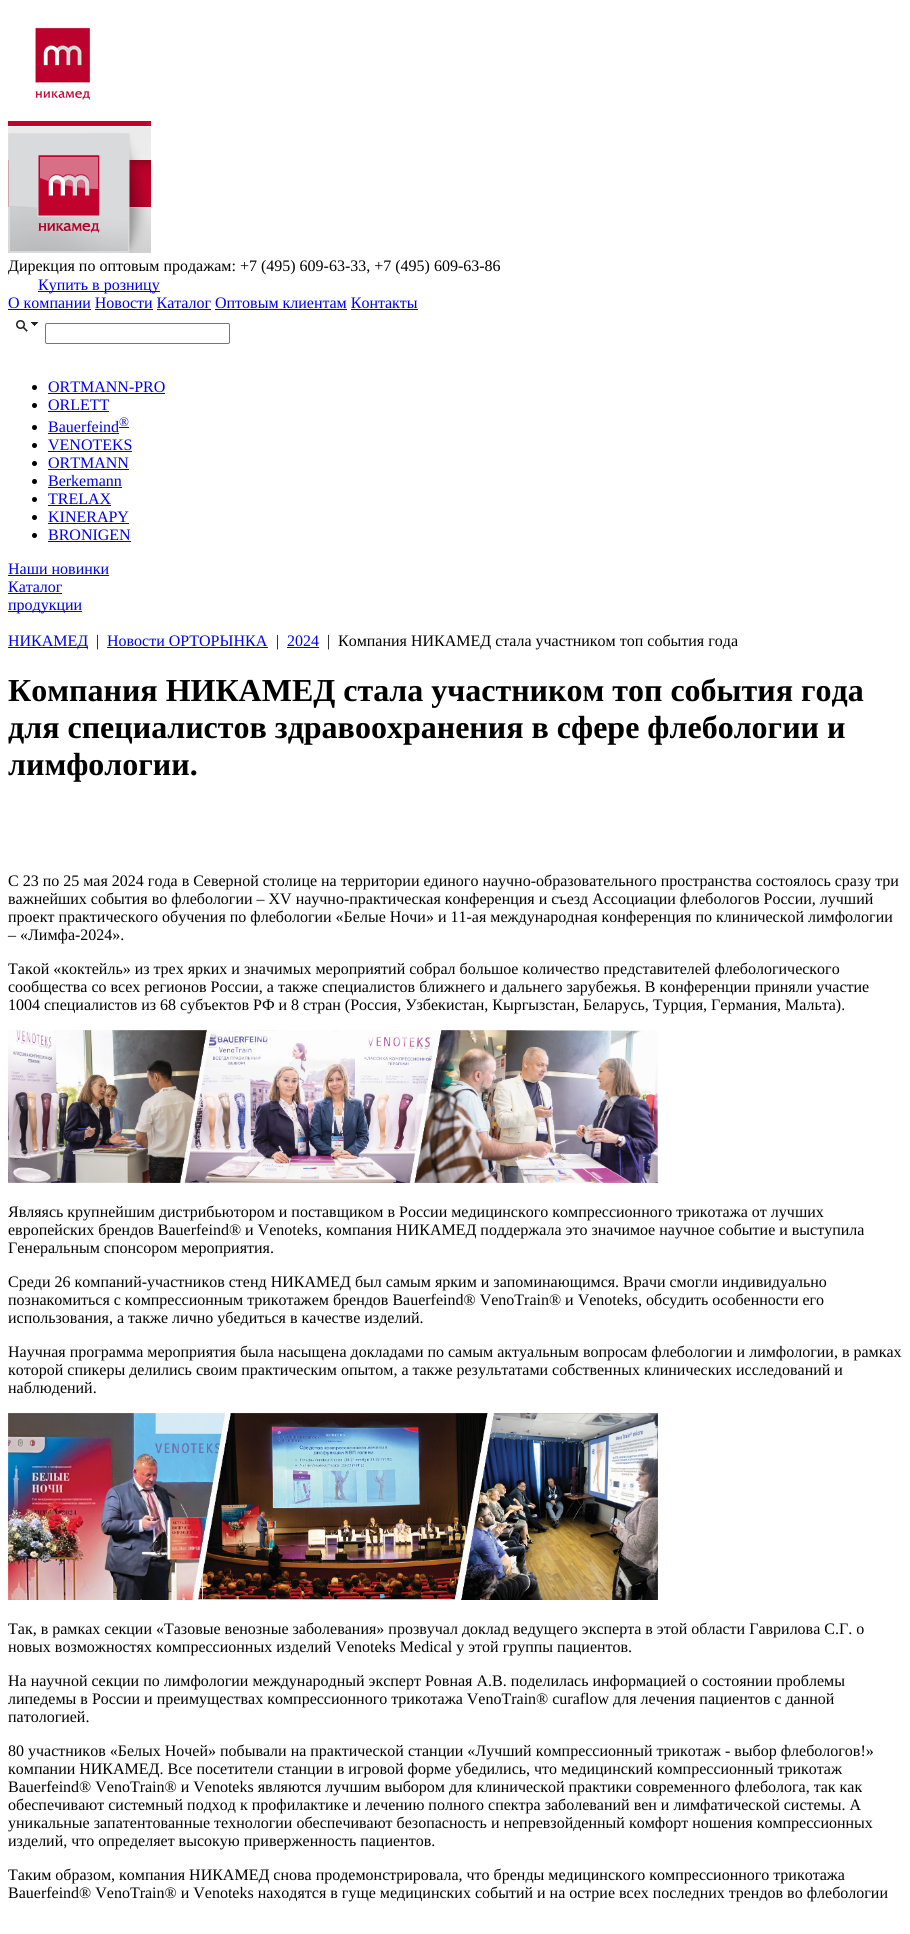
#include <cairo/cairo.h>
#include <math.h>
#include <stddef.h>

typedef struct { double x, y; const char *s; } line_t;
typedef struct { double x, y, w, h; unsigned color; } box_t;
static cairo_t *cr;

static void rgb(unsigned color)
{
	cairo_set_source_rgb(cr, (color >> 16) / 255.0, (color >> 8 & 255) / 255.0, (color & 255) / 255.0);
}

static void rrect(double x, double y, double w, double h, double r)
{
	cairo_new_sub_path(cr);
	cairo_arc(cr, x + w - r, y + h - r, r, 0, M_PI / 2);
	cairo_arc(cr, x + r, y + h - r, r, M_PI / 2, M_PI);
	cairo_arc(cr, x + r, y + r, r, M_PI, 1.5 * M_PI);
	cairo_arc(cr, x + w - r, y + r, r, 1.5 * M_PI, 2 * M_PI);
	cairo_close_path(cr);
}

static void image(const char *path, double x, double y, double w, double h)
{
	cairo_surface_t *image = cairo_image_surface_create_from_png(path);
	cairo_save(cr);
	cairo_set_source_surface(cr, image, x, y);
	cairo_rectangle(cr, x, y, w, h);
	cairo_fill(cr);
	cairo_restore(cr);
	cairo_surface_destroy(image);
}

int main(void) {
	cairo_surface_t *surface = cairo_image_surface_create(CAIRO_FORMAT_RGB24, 910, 1934);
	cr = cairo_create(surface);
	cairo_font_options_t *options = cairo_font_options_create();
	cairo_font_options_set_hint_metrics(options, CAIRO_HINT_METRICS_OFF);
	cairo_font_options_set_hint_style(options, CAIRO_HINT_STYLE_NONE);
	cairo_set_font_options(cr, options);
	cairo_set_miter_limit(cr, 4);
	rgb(0xffffff);
	cairo_paint(cr);
	image("img/1.png", 35, 27, 55, 73);
	image("img/2.png", 8, 121, 143, 132);
	{
		static const box_t items[] = {
			{38, 291, 122, 1, 0x0000ee},
			{8, 309, 83, 1, 0x0000ee},
			{95, 309, 58, 1, 0x0000ee},
			{157, 309, 54, 1, 0x0000ee},
			{215, 309, 132, 1, 0x0000ee},
			{351, 309, 67, 1, 0x0000ee},
		};
		for (size_t i = 0; i < sizeof items / sizeof *items; i++) {
			rgb(items[i].color);
			cairo_rectangle(cr, items[i].x, items[i].y, items[i].w, items[i].h);
			cairo_fill(cr);
		}
	}
	image("img/3.png", 16, 320, 22, 12);
	rrect(45.5, 323.5, 184, 20, 1.5);
	rgb(0x767676);
	cairo_set_line_width(cr, 1);
	cairo_stroke(cr);
	rgb(0x000000);
	cairo_arc(cr, 34.5, 387.5, 2.5, 0, 2 * M_PI);
	cairo_fill(cr);
	rgb(0x0000ee);
	cairo_rectangle(cr, 48, 393, 117, 1);
	cairo_fill(cr);
	rgb(0x000000);
	cairo_arc(cr, 34.5, 405.5, 2.5, 0, 2 * M_PI);
	cairo_fill(cr);
	rgb(0x0000ee);
	cairo_rectangle(cr, 48, 411, 61, 1);
	cairo_fill(cr);
	rgb(0x000000);
	cairo_arc(cr, 34.5, 427.5, 2.5, 0, 2 * M_PI);
	cairo_fill(cr);
	rgb(0x0000ee);
	cairo_rectangle(cr, 48, 433, 71, 1);
	cairo_fill(cr);
	cairo_rectangle(cr, 119, 427, 10, 1);
	cairo_fill(cr);
	rgb(0x000000);
	cairo_arc(cr, 34.5, 445.5, 2.5, 0, 2 * M_PI);
	cairo_fill(cr);
	rgb(0x0000ee);
	cairo_rectangle(cr, 48, 451, 84, 1);
	cairo_fill(cr);
	rgb(0x000000);
	cairo_arc(cr, 34.5, 463.5, 2.5, 0, 2 * M_PI);
	cairo_fill(cr);
	rgb(0x0000ee);
	cairo_rectangle(cr, 48, 469, 81, 1);
	cairo_fill(cr);
	rgb(0x000000);
	cairo_arc(cr, 34.5, 481.5, 2.5, 0, 2 * M_PI);
	cairo_fill(cr);
	rgb(0x0000ee);
	cairo_rectangle(cr, 48, 487, 74, 1);
	cairo_fill(cr);
	rgb(0x000000);
	cairo_arc(cr, 34.5, 499.5, 2.5, 0, 2 * M_PI);
	cairo_fill(cr);
	rgb(0x0000ee);
	cairo_rectangle(cr, 48, 505, 63, 1);
	cairo_fill(cr);
	rgb(0x000000);
	cairo_arc(cr, 34.5, 517.5, 2.5, 0, 2 * M_PI);
	cairo_fill(cr);
	rgb(0x0000ee);
	cairo_rectangle(cr, 48, 523, 81, 1);
	cairo_fill(cr);
	rgb(0x000000);
	cairo_arc(cr, 34.5, 535.5, 2.5, 0, 2 * M_PI);
	cairo_fill(cr);
	{
		static const box_t items[] = {
			{48, 541, 83, 1, 0x0000ee},
			{8, 575, 101, 1, 0x0000ee},
			{8, 593, 54, 1, 0x0000ee},
			{8, 611, 74, 1, 0x0000ee},
			{8, 647, 80, 1, 0x0000ee},
			{107, 647, 161, 1, 0x0000ee},
			{287, 647, 32, 1, 0x0000ee},
		};
		for (size_t i = 0; i < sizeof items / sizeof *items; i++) {
			rgb(items[i].color);
			cairo_rectangle(cr, items[i].x, items[i].y, items[i].w, items[i].h);
			cairo_fill(cr);
		}
	}
	image("img/4.png", 8, 1030, 650, 153);
	image("img/5.png", 8, 1413, 650, 187);
	cairo_select_font_face(cr, "Liberation Serif", CAIRO_FONT_SLANT_NORMAL, CAIRO_FONT_WEIGHT_NORMAL);
	cairo_set_font_size(cr, 16);
	rgb(0x000000);
	cairo_move_to(cr, 8, 271);
	cairo_show_text(cr, "Дирекция по оптовым продажам: +7 (495) 609-63-33, +7 (495) 609-63-86");
	rgb(0x0000ee);
	{
		static const line_t items[] = {
			{38, 290, "Купить в розницу"},
			{8, 308, "О компании Новости Каталог Оптовым клиентам Контакты"},
			{48, 392, "ORTMANN-PRO"},
			{48, 410, "ORLETT"},
			{48, 432, "Bauerfeind"},
		};
		for (size_t i = 0; i < sizeof items / sizeof *items; i++) {
			cairo_move_to(cr, items[i].x, items[i].y);
			cairo_show_text(cr, items[i].s);
		}
	}
	cairo_set_font_size(cr, 13);
	cairo_move_to(cr, 119, 426);
	cairo_show_text(cr, "®");
	cairo_set_font_size(cr, 16);
	{
		static const line_t items[] = {
			{48, 450, "VENOTEKS"},
			{48, 468, "ORTMANN"},
			{48, 486, "Berkemann"},
			{48, 504, "TRELAX"},
			{48, 522, "KINERAPY"},
			{48, 540, "BRONIGEN"},
			{8, 574, "Наши новинки"},
			{8, 592, "Каталог"},
			{8, 610, "продукции"},
			{8, 646, "НИКАМЕД"},
		};
		for (size_t i = 0; i < sizeof items / sizeof *items; i++) {
			cairo_move_to(cr, items[i].x, items[i].y);
			cairo_show_text(cr, items[i].s);
		}
	}
	rgb(0x000000);
	cairo_move_to(cr, 96, 646);
	cairo_show_text(cr, "|");
	rgb(0x0000ee);
	cairo_move_to(cr, 107, 646);
	cairo_show_text(cr, "Новости ОРТОРЫНКА");
	rgb(0x000000);
	cairo_move_to(cr, 276, 646);
	cairo_show_text(cr, "|");
	rgb(0x0000ee);
	cairo_move_to(cr, 287, 646);
	cairo_show_text(cr, "2024");
	rgb(0x000000);
	cairo_move_to(cr, 327, 646);
	cairo_show_text(cr, "|");
	cairo_move_to(cr, 338, 646);
	cairo_show_text(cr, "Компания НИКАМЕД стала участником топ события года");
	cairo_select_font_face(cr, "Liberation Serif", CAIRO_FONT_SLANT_NORMAL, CAIRO_FONT_WEIGHT_BOLD);
	cairo_set_font_size(cr, 32);
	{
		static const line_t items[] = {
			{8, 701, "Компания НИКАМЕД стала участником топ события года"},
			{8, 738, "для специалистов здравоохранения в сфере флебологии и"},
			{8, 775, "лимфологии."},
		};
		for (size_t i = 0; i < sizeof items / sizeof *items; i++) {
			cairo_move_to(cr, items[i].x, items[i].y);
			cairo_show_text(cr, items[i].s);
		}
	}
	cairo_select_font_face(cr, "Liberation Serif", CAIRO_FONT_SLANT_NORMAL, CAIRO_FONT_WEIGHT_NORMAL);
	cairo_set_font_size(cr, 16);
	{
		static const line_t items[] = {
			{8, 886, "С 23 по 25 мая 2024 года в Северной столице на территории единого научно-образовательного пространства состоялось сразу три"},
			{8, 904, "важнейших события во флебологии – XV научно-практическая конференция и съезд Ассоциации флебологов России, лучший"},
			{8, 922, "проект практического обучения по флебологии «Белые Ночи» и 11-ая международная конференция по клинической лимфологии"},
			{8, 940, "– «Лимфа-2024»."},
			{8, 974, "Такой «коктейль» из трех ярких и значимых мероприятий собрал большое количество представителей флебологического"},
			{8, 992, "сообщества со всех регионов России, а также специалистов ближнего и дальнего зарубежья. В конференции приняли участие"},
			{8, 1010, "1004 специалистов из 68 субъектов РФ и 8 стран (Россия, Узбекистан, Кыргызстан, Беларусь, Турция, Германия, Мальта)."},
			{8, 1217, "Являясь крупнейшим дистрибьютором и поставщиком в России медицинского компрессионного трикотажа от лучших"},
			{8, 1235, "европейских брендов Bauerfeind® и Venoteks, компания НИКАМЕД поддержала это значимое научное событие и выступила"},
			{8, 1253, "Генеральным спонсором мероприятия."},
			{8, 1287, "Среди 26 компаний-участников стенд НИКАМЕД был самым ярким и запоминающимся. Врачи смогли индивидуально"},
			{8, 1305, "познакомиться с компрессионным трикотажем брендов Bauerfeind® VenoTrain® и Venoteks, обсудить особенности его"},
			{8, 1323, "использования, а также лично убедиться в качестве изделий."},
			{8, 1357, "Научная программа мероприятия была насыщена докладами по самым актуальным вопросам флебологии и лимфологии, в рамках"},
			{8, 1375, "которой спикеры делились своим практическим опытом, а также результатами собственных клинических исследований и"},
			{8, 1393, "наблюдений."},
			{8, 1634, "Так, в рамках секции «Тазовые венозные заболевания» прозвучал доклад ведущего эксперта в этой области Гаврилова С.Г. о"},
			{8, 1652, "новых возможностях компрессионных изделий Venoteks Medical у этой группы пациентов."},
			{8, 1686, "На научной секции по лимфологии международный эксперт Ровная А.В. поделилась информацией о состоянии проблемы"},
			{8, 1704, "липедемы в России и преимуществах компрессионного трикотажа VenoTrain® curaflow для лечения пациентов с данной"},
			{8, 1722, "патологией."},
			{8, 1756, "80 участников «Белых Ночей» побывали на практической станции «Лучший компрессионный трикотаж - выбор флебологов!»"},
			{8, 1774, "компании НИКАМЕД. Все посетители станции в игровой форме убедились, что медицинский компрессионный трикотаж"},
			{8, 1792, "Bauerfeind® VenoTrain® и Venoteks являются лучшим выбором для клинической практики современного флеболога, так как"},
			{8, 1810, "обеспечивают системный подход к профилактике и лечению полного спектра заболеваний вен и лимфатической системы. А"},
			{8, 1828, "уникальные запатентованные технологии обеспечивают безопасность и непревзойденный комфорт ношения компрессионных"},
			{8, 1846, "изделий, что определяет высокую приверженность пациентов."},
			{8, 1880, "Таким образом, компания НИКАМЕД снова продемонстрировала, что бренды медицинского компрессионного трикотажа"},
			{8, 1898, "Bauerfeind® VenoTrain® и Venoteks находятся в гуще медицинских событий и на острие всех последних трендов во флебологии"},
		};
		for (size_t i = 0; i < sizeof items / sizeof *items; i++) {
			cairo_move_to(cr, items[i].x, items[i].y);
			cairo_show_text(cr, items[i].s);
		}
	}
	cairo_surface_write_to_png(surface, "page.png");
	cairo_font_options_destroy(options);
	cairo_destroy(cr);
	cairo_surface_destroy(surface);
	return 0;
}
